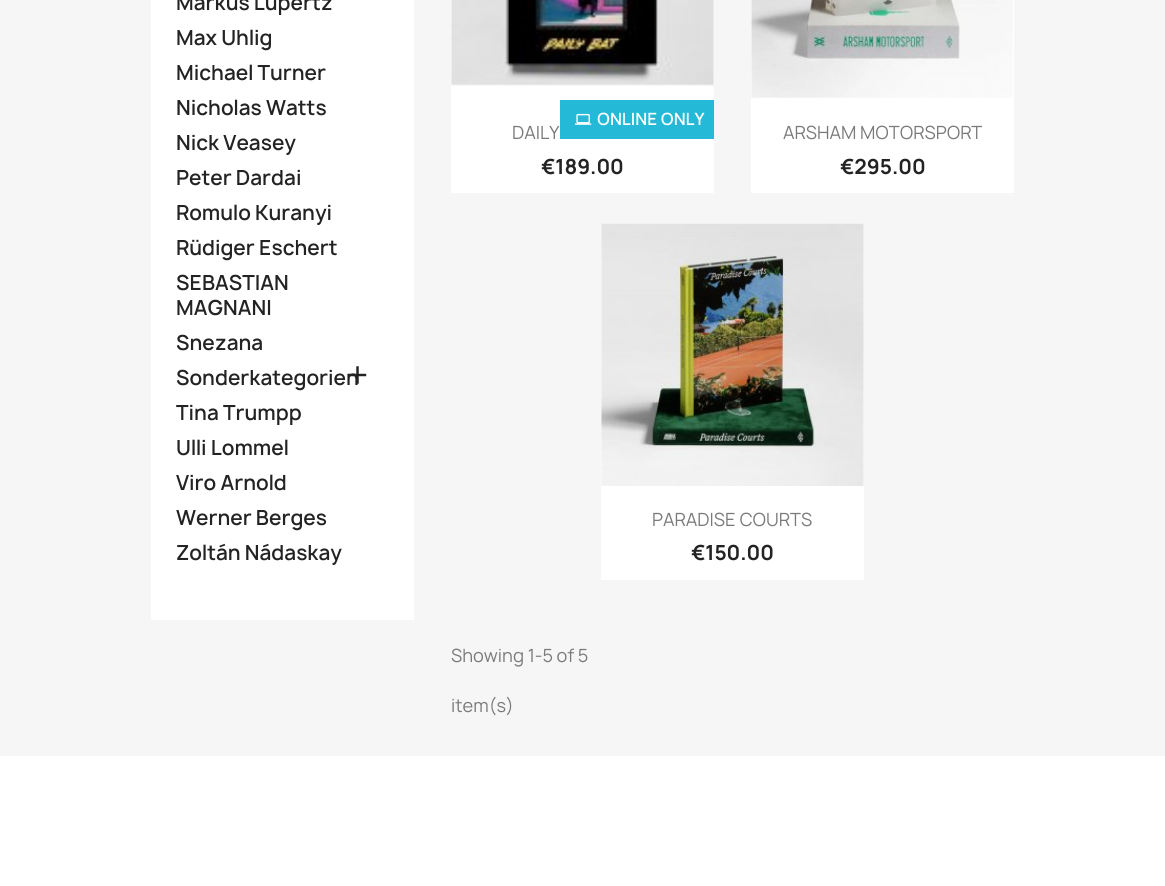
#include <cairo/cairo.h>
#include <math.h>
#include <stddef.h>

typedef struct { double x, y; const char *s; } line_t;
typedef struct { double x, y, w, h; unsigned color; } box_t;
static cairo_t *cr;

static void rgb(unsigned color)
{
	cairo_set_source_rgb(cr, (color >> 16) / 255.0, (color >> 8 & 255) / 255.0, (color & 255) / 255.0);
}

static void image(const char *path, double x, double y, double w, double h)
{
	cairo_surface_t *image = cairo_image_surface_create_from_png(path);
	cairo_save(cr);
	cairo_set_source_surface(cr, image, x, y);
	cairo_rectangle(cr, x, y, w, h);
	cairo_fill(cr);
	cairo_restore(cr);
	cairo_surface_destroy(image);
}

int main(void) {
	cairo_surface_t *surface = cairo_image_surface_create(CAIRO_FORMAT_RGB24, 1165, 886);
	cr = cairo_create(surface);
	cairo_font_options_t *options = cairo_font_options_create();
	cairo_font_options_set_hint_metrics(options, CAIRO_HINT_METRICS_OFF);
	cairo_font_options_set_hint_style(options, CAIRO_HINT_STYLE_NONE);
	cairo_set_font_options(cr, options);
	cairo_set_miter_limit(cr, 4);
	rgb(0xffffff);
	cairo_paint(cr);
	{
		static const box_t items[] = {
			{0, 0, 1165, 756, 0xf6f6f6},
			{151, 0, 263, 620, 0xffffff},
			{451, 0, 263, 193, 0xffffff},
		};
		for (size_t i = 0; i < sizeof items / sizeof *items; i++) {
			rgb(items[i].color);
			cairo_rectangle(cr, items[i].x, items[i].y, items[i].w, items[i].h);
			cairo_fill(cr);
		}
	}
	image("img/2.png", 451, 0, 263, 86);
	rgb(0x24b9d7);
	cairo_rectangle(cr, 560, 100, 154, 39);
	cairo_fill(cr);
	image("img/3.png", 575, 113, 17, 12);
	rgb(0xffffff);
	cairo_rectangle(cr, 751, 0, 263, 193);
	cairo_fill(cr);
	image("img/4.png", 751, 0, 262, 98);
	cairo_rectangle(cr, 601, 224, 263, 356);
	cairo_fill(cr);
	image("img/5.png", 601, 223, 263, 263);
	cairo_select_font_face(cr, "Manrope SemiBold", CAIRO_FONT_SLANT_NORMAL, CAIRO_FONT_WEIGHT_NORMAL);
	cairo_set_font_size(cr, 20);
	rgb(0x232323);
	{
		static const line_t items[] = {
			{176, 10, "Markus Lüpertz"},
			{176, 45, "Max Uhlig"},
			{176, 80, "Michael Turner"},
			{176, 115, "Nicholas Watts"},
			{176, 150, "Nick Veasey"},
			{176, 185, "Peter Dardai"},
			{176, 220, "Romulo Kuranyi"},
			{176, 255, "Rüdiger Eschert"},
			{176, 290, "SEBASTIAN"},
			{176, 315, "MAGNANI"},
			{176, 350, "Snezana"},
			{176, 385, "Sonderkategorien"},
		};
		for (size_t i = 0; i < sizeof items / sizeof *items; i++) {
			cairo_move_to(cr, items[i].x, items[i].y);
			cairo_show_text(cr, items[i].s);
		}
	}
	image("img/1.png", 348, 366, 19, 18);
	{
		static const line_t items[] = {
			{176, 420, "Tina Trumpp"},
			{176, 455, "Ulli Lommel"},
			{176, 490, "Viro Arnold"},
			{176, 525, "Werner Berges"},
			{176, 560, "Zoltán Nádaskay"},
		};
		for (size_t i = 0; i < sizeof items / sizeof *items; i++) {
			cairo_move_to(cr, items[i].x, items[i].y);
			cairo_show_text(cr, items[i].s);
		}
	}
	cairo_set_font_size(cr, 16.25);
	rgb(0xffffff);
	cairo_move_to(cr, 597, 125);
	cairo_show_text(cr, "ONLINE ONLY");
	cairo_select_font_face(cr, "Manrope", CAIRO_FONT_SLANT_NORMAL, CAIRO_FONT_WEIGHT_NORMAL);
	cairo_set_font_size(cr, 17.5);
	rgb(0x7a7a7a);
	cairo_move_to(cr, 512, 139);
	cairo_show_text(cr, "DAILY");
	cairo_select_font_face(cr, "Manrope", CAIRO_FONT_SLANT_NORMAL, CAIRO_FONT_WEIGHT_BOLD);
	cairo_set_font_size(cr, 20);
	rgb(0x232323);
	cairo_move_to(cr, 541, 174);
	cairo_show_text(cr, "€189.00");
	cairo_select_font_face(cr, "Manrope", CAIRO_FONT_SLANT_NORMAL, CAIRO_FONT_WEIGHT_NORMAL);
	cairo_set_font_size(cr, 17.5);
	rgb(0x7a7a7a);
	cairo_move_to(cr, 783, 139);
	cairo_show_text(cr, "ARSHAM MOTORSPORT");
	cairo_select_font_face(cr, "Manrope", CAIRO_FONT_SLANT_NORMAL, CAIRO_FONT_WEIGHT_BOLD);
	cairo_set_font_size(cr, 20);
	rgb(0x232323);
	cairo_move_to(cr, 840, 174);
	cairo_show_text(cr, "€295.00");
	cairo_select_font_face(cr, "Manrope", CAIRO_FONT_SLANT_NORMAL, CAIRO_FONT_WEIGHT_NORMAL);
	cairo_set_font_size(cr, 17.5);
	rgb(0x7a7a7a);
	cairo_move_to(cr, 652, 526);
	cairo_show_text(cr, "PARADISE COURTS");
	cairo_select_font_face(cr, "Manrope", CAIRO_FONT_SLANT_NORMAL, CAIRO_FONT_WEIGHT_BOLD);
	cairo_set_font_size(cr, 20);
	rgb(0x232323);
	cairo_move_to(cr, 691, 560);
	cairo_show_text(cr, "€150.00");
	cairo_select_font_face(cr, "Manrope", CAIRO_FONT_SLANT_NORMAL, CAIRO_FONT_WEIGHT_NORMAL);
	cairo_set_font_size(cr, 17.5);
	rgb(0x7a7a7a);
	cairo_move_to(cr, 451, 662);
	cairo_show_text(cr, "Showing 1-5 of 5");
	cairo_move_to(cr, 451, 712);
	cairo_show_text(cr, "item(s)");
	cairo_surface_write_to_png(surface, "page.png");
	cairo_font_options_destroy(options);
	cairo_destroy(cr);
	cairo_surface_destroy(surface);
	return 0;
}
